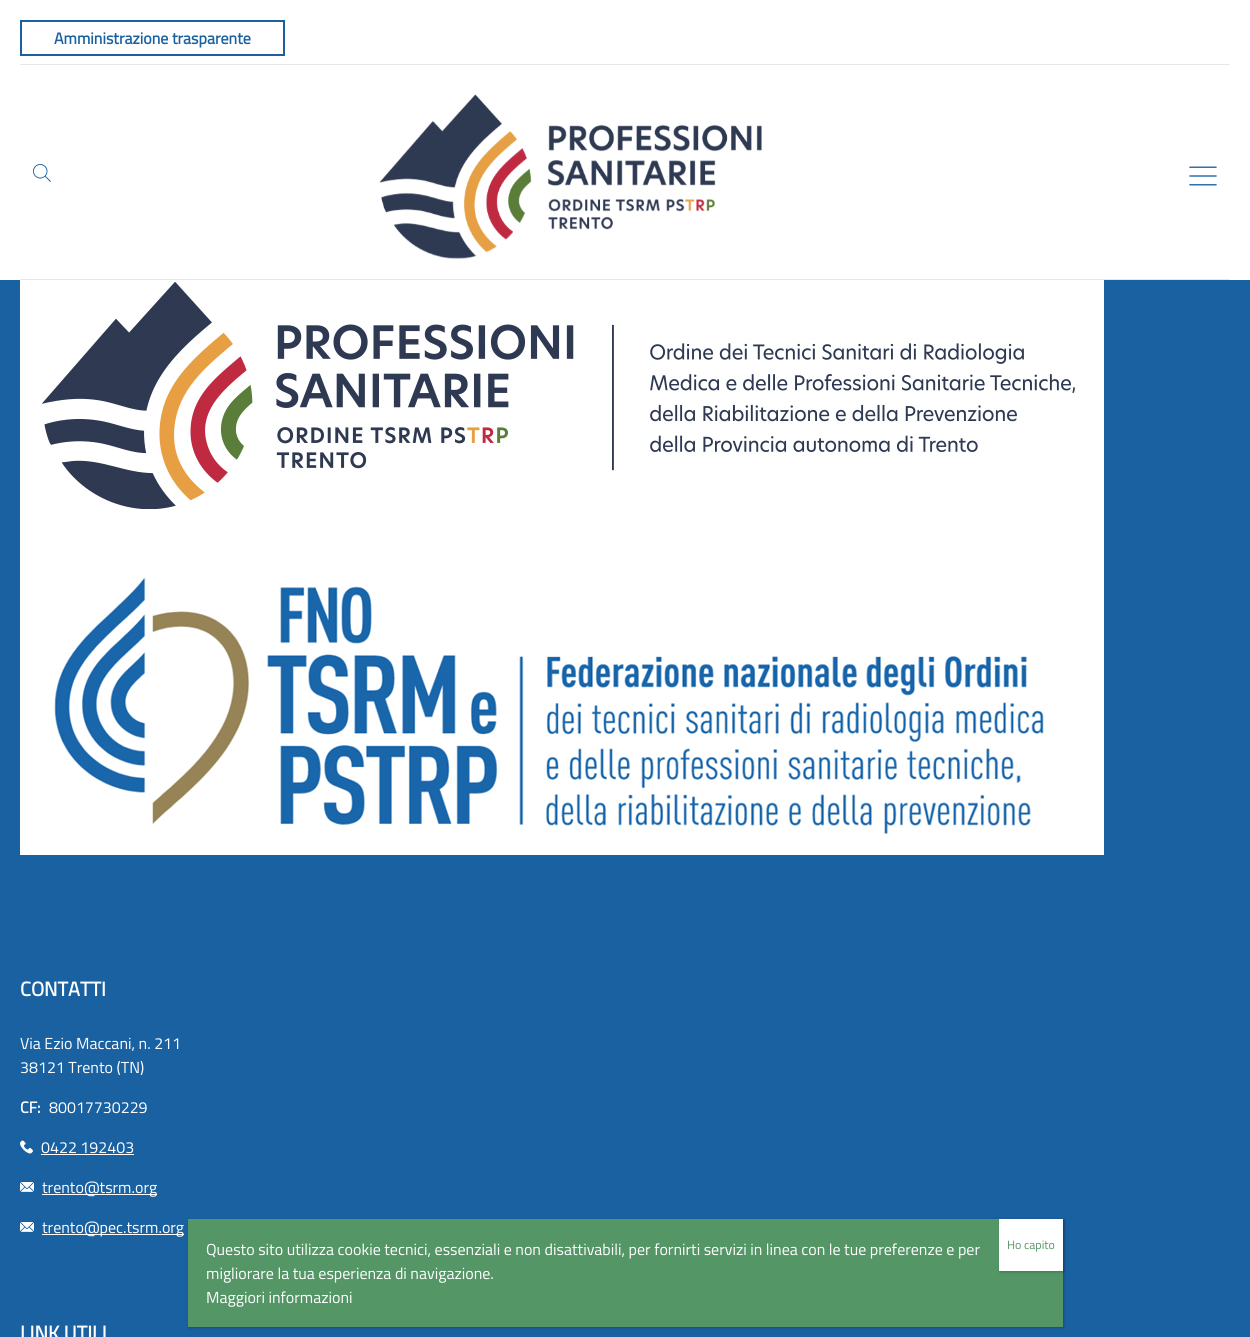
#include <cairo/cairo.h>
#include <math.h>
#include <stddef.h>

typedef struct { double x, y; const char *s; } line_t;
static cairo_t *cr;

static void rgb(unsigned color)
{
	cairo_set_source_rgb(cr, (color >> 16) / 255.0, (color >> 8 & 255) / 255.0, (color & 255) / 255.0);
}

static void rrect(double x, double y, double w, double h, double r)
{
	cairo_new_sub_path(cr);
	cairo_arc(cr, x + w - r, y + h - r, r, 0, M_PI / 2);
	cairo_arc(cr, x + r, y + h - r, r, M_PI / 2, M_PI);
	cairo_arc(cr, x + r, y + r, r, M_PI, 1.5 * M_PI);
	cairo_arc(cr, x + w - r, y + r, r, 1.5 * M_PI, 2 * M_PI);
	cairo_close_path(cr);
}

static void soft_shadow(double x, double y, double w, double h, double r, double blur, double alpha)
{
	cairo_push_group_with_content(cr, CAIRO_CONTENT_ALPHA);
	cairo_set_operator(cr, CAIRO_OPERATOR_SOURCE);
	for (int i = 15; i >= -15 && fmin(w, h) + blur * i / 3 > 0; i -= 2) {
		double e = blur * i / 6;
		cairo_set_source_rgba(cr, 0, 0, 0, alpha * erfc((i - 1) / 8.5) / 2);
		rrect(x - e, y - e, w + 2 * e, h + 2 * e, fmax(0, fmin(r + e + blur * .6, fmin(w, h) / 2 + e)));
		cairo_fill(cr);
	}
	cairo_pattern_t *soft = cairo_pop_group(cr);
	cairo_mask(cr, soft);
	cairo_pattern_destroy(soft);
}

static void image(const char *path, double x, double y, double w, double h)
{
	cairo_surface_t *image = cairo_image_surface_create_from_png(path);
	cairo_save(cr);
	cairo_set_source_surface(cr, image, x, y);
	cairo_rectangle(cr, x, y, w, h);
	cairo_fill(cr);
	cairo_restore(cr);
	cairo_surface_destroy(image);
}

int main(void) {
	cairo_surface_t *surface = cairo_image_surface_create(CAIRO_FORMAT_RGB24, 1250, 1337);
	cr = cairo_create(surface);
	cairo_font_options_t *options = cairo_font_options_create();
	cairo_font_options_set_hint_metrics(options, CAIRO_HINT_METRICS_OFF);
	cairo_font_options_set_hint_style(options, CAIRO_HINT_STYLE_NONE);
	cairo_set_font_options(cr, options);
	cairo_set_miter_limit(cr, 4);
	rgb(0x1a61a1);
	cairo_paint(cr);
	rgb(0xffffff);
	cairo_rectangle(cr, 0, 0, 1250, 280);
	cairo_fill(cr);
	cairo_rectangle(cr, 21, 21, 263, 34);
	rgb(0x1a61a1);
	cairo_stroke(cr);
	rgb(0xe5e7eb);
	cairo_rectangle(cr, 20, 64, 1210, 1);
	cairo_fill(cr);
	image("img/1.png", 33, 164, 18, 18);
	image("img/2.png", 379, 94, 383, 165);
	image("img/3.png", 1189, 166, 28, 20);
	cairo_rectangle(cr, 20, 279, 1210, 1);
	cairo_fill(cr);
	image("img/4.png", 20, 280, 1084, 575);
	image("img/5.png", 20, 1140, 13, 14);
	rgb(0xffffff);
	cairo_rectangle(cr, 41, 1154, 93, 1);
	cairo_fill(cr);
	image("img/6.png", 20, 1182, 14, 10);
	cairo_rectangle(cr, 42, 1194, 115, 1);
	cairo_fill(cr);
	image("img/6.png", 20, 1222, 14, 10);
	cairo_rectangle(cr, 42, 1234, 142, 1);
	cairo_fill(cr);
	rgb(0x020202);
	soft_shadow(189, 1220, 875, 108, 0, 1.5, 0.23);
	rgb(0x549666);
	cairo_rectangle(cr, 188, 1219, 875, 108);
	cairo_fill(cr);
	rgb(0x020202);
	soft_shadow(1000, 1220, 64, 52, 0, 1.5, 0.23);
	rgb(0xffffff);
	cairo_rectangle(cr, 999, 1219, 64, 52);
	cairo_fill(cr);
	cairo_select_font_face(cr, "Titillium Web", CAIRO_FONT_SLANT_NORMAL, CAIRO_FONT_WEIGHT_BOLD);
	cairo_set_font_size(cr, 16);
	rgb(0x1a61a1);
	cairo_move_to(cr, 54, 44);
	cairo_show_text(cr, "Amministrazione trasparente");
	cairo_set_font_size(cr, 20);
	rgb(0xffffff);
	cairo_move_to(cr, 20, 996);
	cairo_show_text(cr, "CONTATTI");
	cairo_select_font_face(cr, "Titillium Web", CAIRO_FONT_SLANT_NORMAL, CAIRO_FONT_WEIGHT_NORMAL);
	cairo_set_font_size(cr, 16);
	cairo_move_to(cr, 20, 1049);
	cairo_show_text(cr, "Via Ezio Maccani, n. 211");
	cairo_move_to(cr, 20, 1073);
	cairo_show_text(cr, "38121 Trento (TN)");
	cairo_select_font_face(cr, "Titillium Web", CAIRO_FONT_SLANT_NORMAL, CAIRO_FONT_WEIGHT_BOLD);
	cairo_move_to(cr, 20, 1113);
	cairo_show_text(cr, "CF:");
	cairo_select_font_face(cr, "Titillium Web", CAIRO_FONT_SLANT_NORMAL, CAIRO_FONT_WEIGHT_NORMAL);
	{
		static const line_t items[] = {
			{49, 1113, "80017730229"},
			{41, 1153, "0422 192403"},
			{42, 1193, "trento@tsrm.org"},
			{42, 1233, "trento@pec.tsrm.org"},
		};
		for (size_t i = 0; i < sizeof items / sizeof *items; i++) {
			cairo_move_to(cr, items[i].x, items[i].y);
			cairo_show_text(cr, items[i].s);
		}
	}
	cairo_select_font_face(cr, "Titillium Web", CAIRO_FONT_SLANT_NORMAL, CAIRO_FONT_WEIGHT_BOLD);
	cairo_set_font_size(cr, 20);
	cairo_move_to(cr, 20, 1340);
	cairo_show_text(cr, "LINK UTILI");
	cairo_select_font_face(cr, "Titillium Web", CAIRO_FONT_SLANT_NORMAL, CAIRO_FONT_WEIGHT_NORMAL);
	cairo_set_font_size(cr, 16);
	{
		static const line_t items[] = {
			{206, 1255, "Questo sito utilizza cookie tecnici, essenziali e non disattivabili, per fornirti servizi in linea con le tue preferenze e per"},
			{206, 1279, "migliorare la tua esperienza di navigazione."},
			{206, 1303, "Maggiori informazioni"},
		};
		for (size_t i = 0; i < sizeof items / sizeof *items; i++) {
			cairo_move_to(cr, items[i].x, items[i].y);
			cairo_show_text(cr, items[i].s);
		}
	}
	cairo_set_font_size(cr, 12);
	rgb(0x549666);
	cairo_move_to(cr, 1007, 1249);
	cairo_show_text(cr, "Ho capito");
	cairo_surface_write_to_png(surface, "page.png");
	cairo_font_options_destroy(options);
	cairo_destroy(cr);
	cairo_surface_destroy(surface);
	return 0;
}
